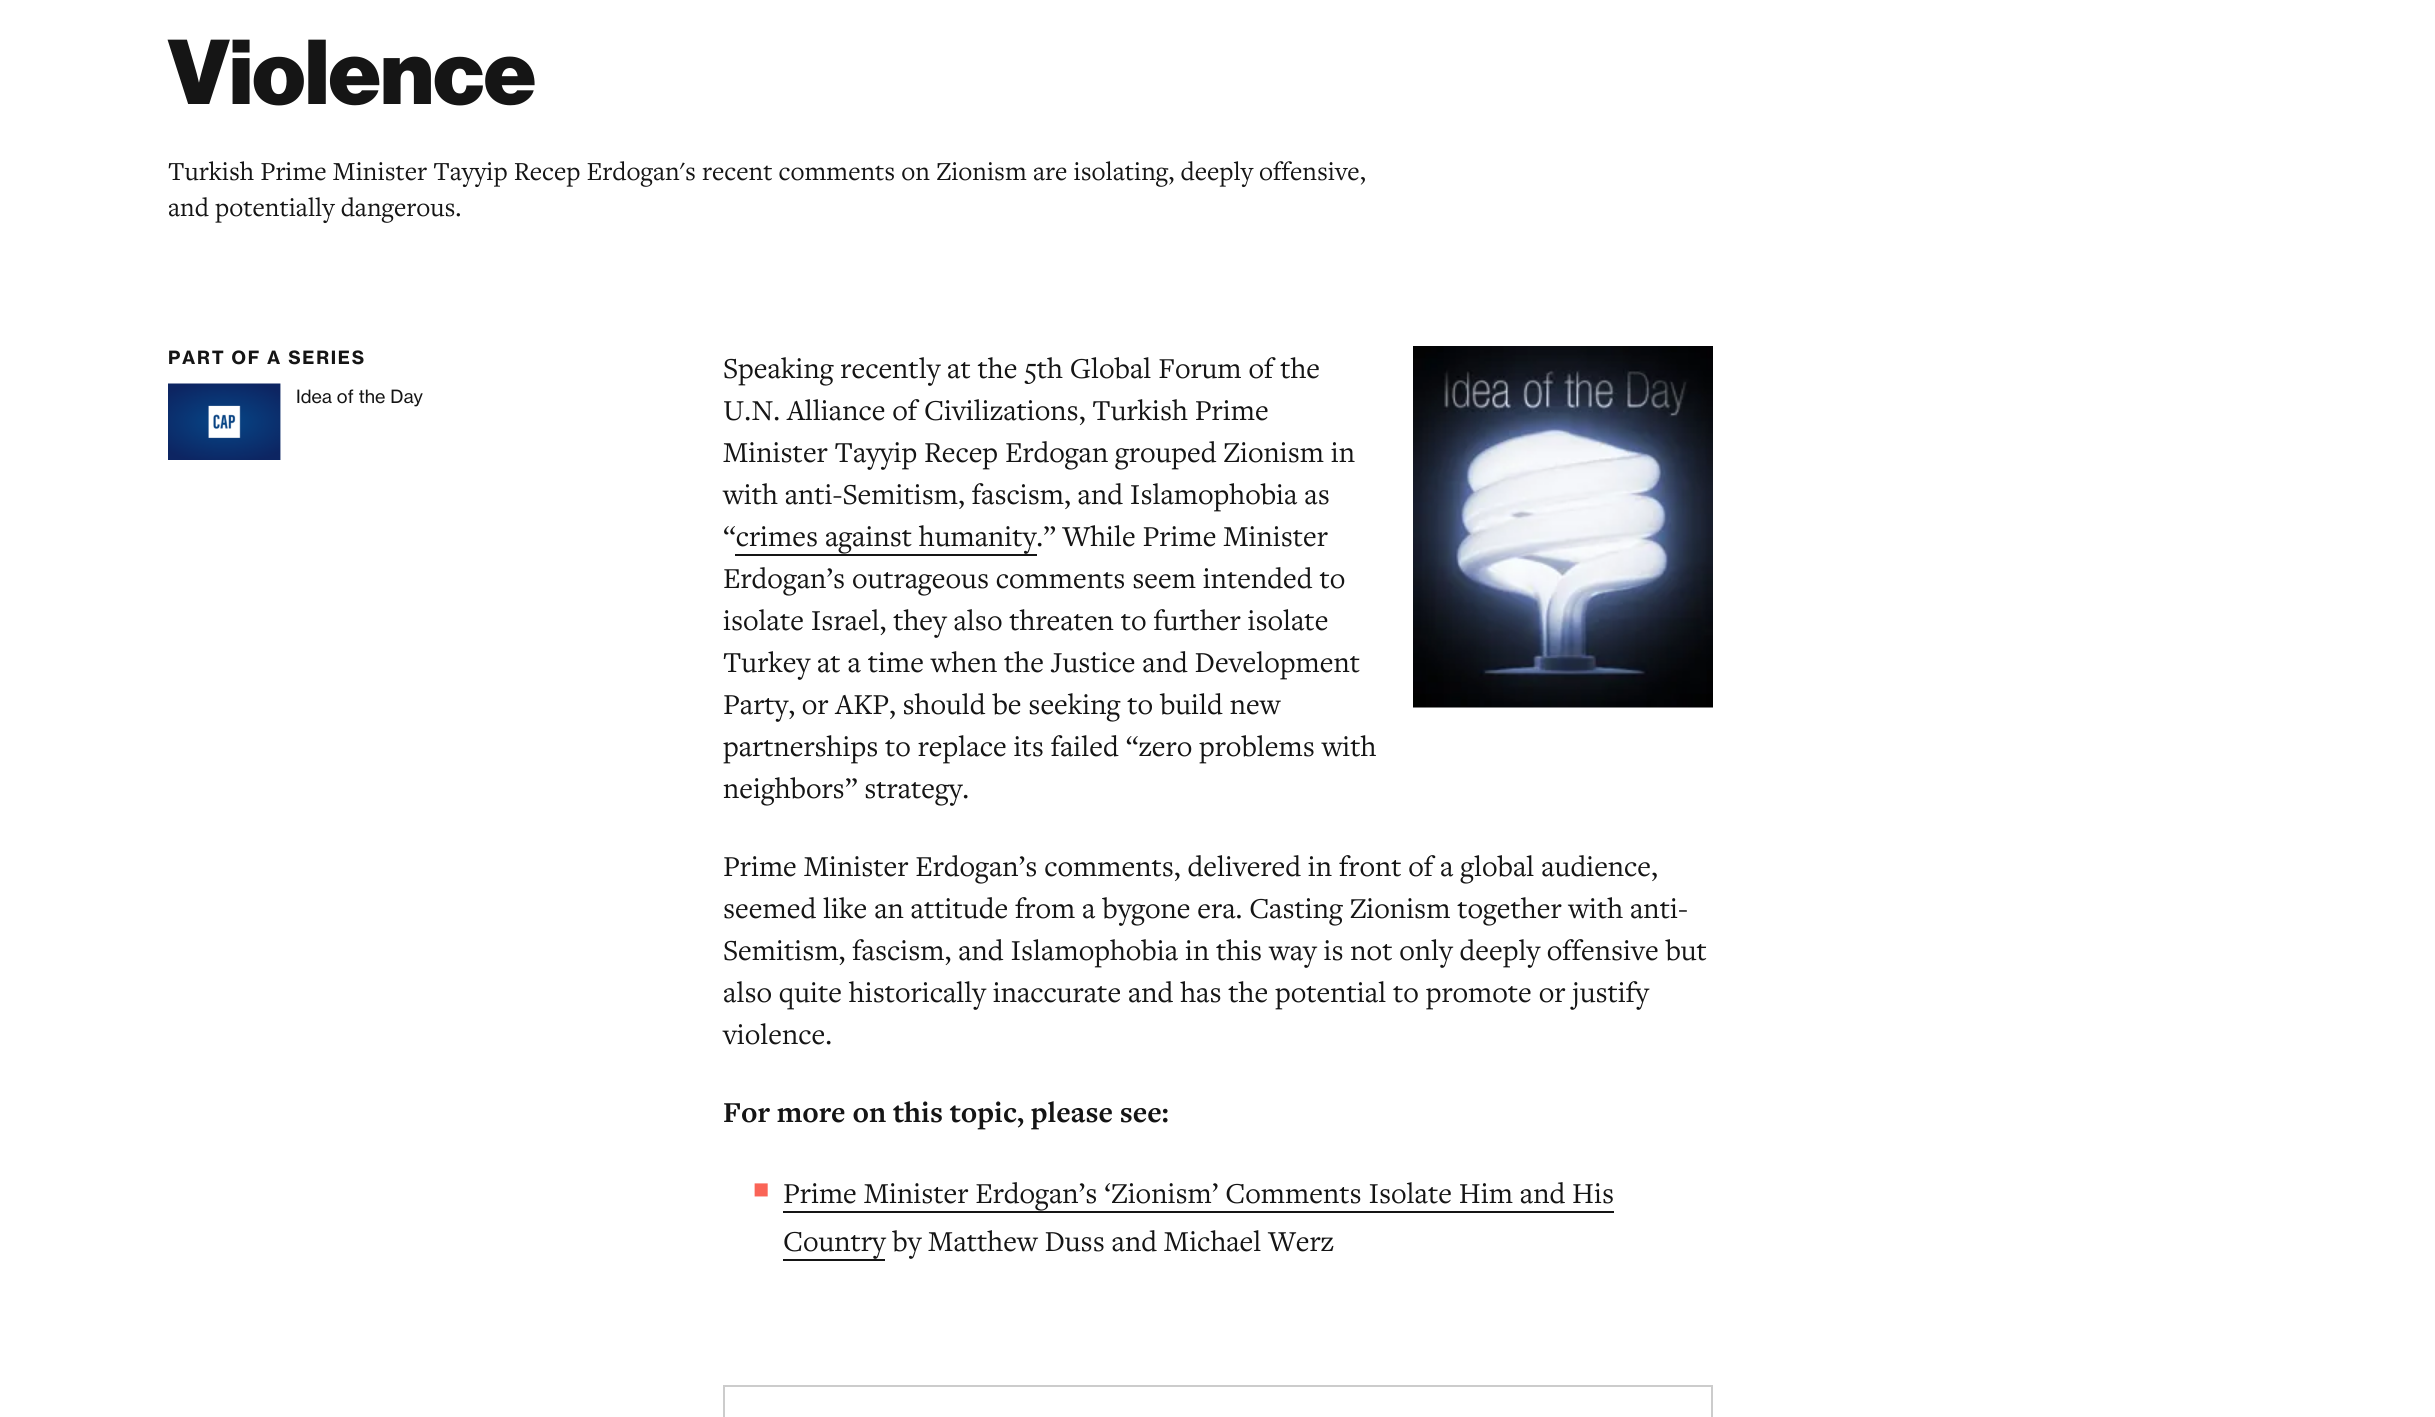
#include <cairo/cairo.h>
#include <math.h>
#include <stddef.h>

typedef struct { double x, y; const char *s; } line_t;
static cairo_t *cr;

static void rgb(unsigned color)
{
	cairo_set_source_rgb(cr, (color >> 16) / 255.0, (color >> 8 & 255) / 255.0, (color & 255) / 255.0);
}

static void tracked(double x, double y, const char *s, double letter, double word)
{
	cairo_move_to(cr, x, y);
	while (*s) {
		char ch[5] = {0};
		int n = 0;
		do ch[n++] = *s++; while ((*s & 0xC0) == 0x80);
		cairo_show_text(cr, ch);
		cairo_rel_move_to(cr, letter + word * (*ch == ' '), 0);
	}
}

static void image(const char *path, double x, double y, double w, double h)
{
	cairo_surface_t *image = cairo_image_surface_create_from_png(path);
	cairo_save(cr);
	cairo_set_source_surface(cr, image, x, y);
	cairo_rectangle(cr, x, y, w, h);
	cairo_fill(cr);
	cairo_restore(cr);
	cairo_surface_destroy(image);
}

int main(void) {
	cairo_surface_t *surface = cairo_image_surface_create(CAIRO_FORMAT_RGB24, 2435, 1417);
	cr = cairo_create(surface);
	cairo_font_options_t *options = cairo_font_options_create();
	cairo_font_options_set_hint_metrics(options, CAIRO_HINT_METRICS_OFF);
	cairo_font_options_set_hint_style(options, CAIRO_HINT_STYLE_NONE);
	cairo_set_font_options(cr, options);
	cairo_set_miter_limit(cr, 4);
	rgb(0xffffff);
	cairo_paint(cr);
	image("img/1.png", 168, 383, 113, 77);
	rgb(0x151515);
	cairo_rectangle(cr, 735, 554, 302, 2);
	cairo_fill(cr);
	image("img/2.png", 1413, 346, 300, 362);
	cairo_rectangle(cr, 783, 1211, 831, 2);
	cairo_fill(cr);
	cairo_rectangle(cr, 783, 1259, 102, 2);
	cairo_fill(cr);
	cairo_rectangle(cr, 724, 1386, 988, 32);
	rgb(0xcccccc);
	cairo_stroke(cr);
	cairo_select_font_face(cr, "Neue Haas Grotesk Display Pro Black", CAIRO_FONT_SLANT_NORMAL, CAIRO_FONT_WEIGHT_NORMAL);
	cairo_set_font_size(cr, 90);
	rgb(0x151515);
	cairo_move_to(cr, 168, 104);
	cairo_show_text(cr, "Violence");
	cairo_select_font_face(cr, "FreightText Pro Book", CAIRO_FONT_SLANT_NORMAL, CAIRO_FONT_WEIGHT_NORMAL);
	cairo_set_font_size(cr, 27);
	cairo_move_to(cr, 168, 180);
	cairo_show_text(cr, "Turkish Prime Minister Tayyip Recep Erdogan's recent comments on Zionism are isolating, deeply offensive,");
	cairo_move_to(cr, 168, 216);
	cairo_show_text(cr, "and potentially dangerous.");
	cairo_select_font_face(cr, "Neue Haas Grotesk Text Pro", CAIRO_FONT_SLANT_NORMAL, CAIRO_FONT_WEIGHT_BOLD);
	cairo_set_font_size(cr, 18);
	tracked(168, 364, "PART OF A SERIES", 1.75, 0);
	cairo_select_font_face(cr, "Neue Haas Grotesk Text Pro", CAIRO_FONT_SLANT_NORMAL, CAIRO_FONT_WEIGHT_NORMAL);
	cairo_move_to(cr, 296, 403);
	cairo_show_text(cr, "Idea of the Day");
	cairo_select_font_face(cr, "FreightText Pro Book", CAIRO_FONT_SLANT_NORMAL, CAIRO_FONT_WEIGHT_NORMAL);
	cairo_set_font_size(cr, 30);
	{
		static const line_t items[] = {
			{723, 378, "Speaking recently at the 5th Global Forum of the"},
			{723, 420, "U.N. Alliance of Civilizations, Turkish Prime"},
			{723, 462, "Minister Tayyip Recep Erdogan grouped Zionism in"},
			{723, 504, "with anti-Semitism, fascism, and Islamophobia as"},
			{723, 546, "“crimes against humanity.” While Prime Minister"},
			{723, 588, "Erdogan’s outrageous comments seem intended to"},
			{723, 630, "isolate Israel, they also threaten to further isolate"},
			{723, 672, "Turkey at a time when the Justice and Development"},
			{723, 714, "Party, or AKP, should be seeking to build new"},
			{723, 756, "partnerships to replace its failed “zero problems with"},
			{723, 798, "neighbors” strategy."},
			{723, 876, "Prime Minister Erdogan’s comments, delivered in front of a global audience,"},
			{723, 918, "seemed like an attitude from a bygone era. Casting Zionism together with anti-"},
			{723, 960, "Semitism, fascism, and Islamophobia in this way is not only deeply offensive but"},
			{723, 1002, "also quite historically inaccurate and has the potential to promote or justify"},
			{723, 1044, "violence."},
		};
		for (size_t i = 0; i < sizeof items / sizeof *items; i++) {
			cairo_move_to(cr, items[i].x, items[i].y);
			cairo_show_text(cr, items[i].s);
		}
	}
	cairo_select_font_face(cr, "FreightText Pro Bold", CAIRO_FONT_SLANT_NORMAL, CAIRO_FONT_WEIGHT_BOLD);
	cairo_move_to(cr, 723, 1122);
	cairo_show_text(cr, "For more on this topic, please see:");
	cairo_select_font_face(cr, "Liberation Sans", CAIRO_FONT_SLANT_NORMAL, CAIRO_FONT_WEIGHT_NORMAL);
	cairo_set_font_size(cr, 27);
	rgb(0xfa6457);
	cairo_move_to(cr, 753, 1198);
	cairo_show_text(cr, "■");
	cairo_select_font_face(cr, "FreightText Pro Book", CAIRO_FONT_SLANT_NORMAL, CAIRO_FONT_WEIGHT_NORMAL);
	cairo_set_font_size(cr, 30);
	rgb(0x151515);
	cairo_move_to(cr, 783, 1203);
	cairo_show_text(cr, "Prime Minister Erdogan’s ‘Zionism’ Comments Isolate Him and His");
	cairo_move_to(cr, 783, 1251);
	cairo_show_text(cr, "Country by Matthew Duss and Michael Werz");
	cairo_surface_write_to_png(surface, "page.png");
	cairo_font_options_destroy(options);
	cairo_destroy(cr);
	cairo_surface_destroy(surface);
	return 0;
}
